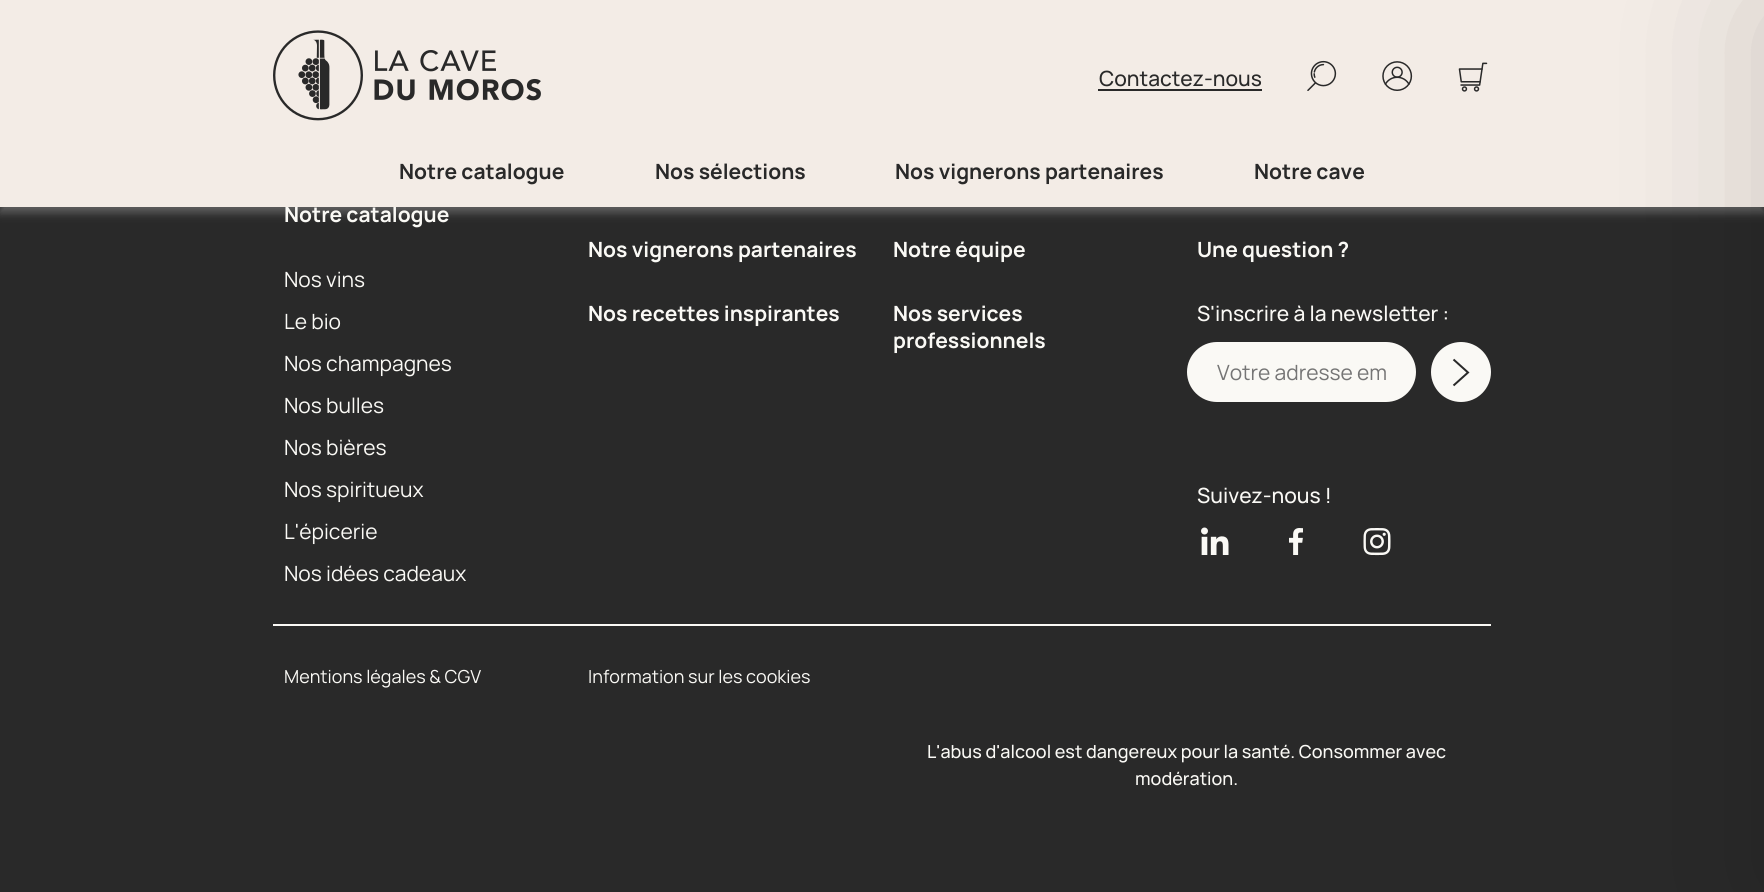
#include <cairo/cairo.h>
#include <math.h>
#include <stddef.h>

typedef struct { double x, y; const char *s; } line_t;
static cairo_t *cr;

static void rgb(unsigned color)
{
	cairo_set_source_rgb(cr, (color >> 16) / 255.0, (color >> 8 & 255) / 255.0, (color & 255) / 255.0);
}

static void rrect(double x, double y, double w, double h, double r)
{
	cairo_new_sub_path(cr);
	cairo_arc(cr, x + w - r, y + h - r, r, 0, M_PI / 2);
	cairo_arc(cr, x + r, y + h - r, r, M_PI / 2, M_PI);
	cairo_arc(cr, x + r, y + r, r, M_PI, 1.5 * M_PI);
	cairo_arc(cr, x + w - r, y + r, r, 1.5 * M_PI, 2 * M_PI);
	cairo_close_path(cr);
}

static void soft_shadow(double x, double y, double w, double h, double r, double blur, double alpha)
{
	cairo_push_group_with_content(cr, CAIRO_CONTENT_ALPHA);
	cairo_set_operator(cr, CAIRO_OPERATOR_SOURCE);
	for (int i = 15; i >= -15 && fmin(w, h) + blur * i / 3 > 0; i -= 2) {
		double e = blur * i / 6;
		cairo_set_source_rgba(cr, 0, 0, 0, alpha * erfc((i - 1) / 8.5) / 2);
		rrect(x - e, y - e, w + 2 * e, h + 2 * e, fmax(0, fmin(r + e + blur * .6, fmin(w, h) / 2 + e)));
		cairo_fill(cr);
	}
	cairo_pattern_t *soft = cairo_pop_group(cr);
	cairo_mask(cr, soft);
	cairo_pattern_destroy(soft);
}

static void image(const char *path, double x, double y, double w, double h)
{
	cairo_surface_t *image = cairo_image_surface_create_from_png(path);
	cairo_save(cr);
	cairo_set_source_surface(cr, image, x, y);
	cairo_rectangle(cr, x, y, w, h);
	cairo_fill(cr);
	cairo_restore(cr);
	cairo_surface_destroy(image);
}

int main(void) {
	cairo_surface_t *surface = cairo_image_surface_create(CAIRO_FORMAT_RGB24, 1764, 892);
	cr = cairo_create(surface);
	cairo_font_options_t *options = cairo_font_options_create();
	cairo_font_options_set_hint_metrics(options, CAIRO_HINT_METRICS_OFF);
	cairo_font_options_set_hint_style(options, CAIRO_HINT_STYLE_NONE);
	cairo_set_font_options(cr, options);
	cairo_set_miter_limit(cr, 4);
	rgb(0x292929);
	cairo_paint(cr);
	rgb(0xcccccc);
	soft_shadow(0, 6, 1764, 207, 0, 4.5, 0.33);
	rgb(0xfaf9f5);
	cairo_rectangle(cr, 273, 624, 1218, 2);
	cairo_fill(cr);
	rrect(1187, 342, 229, 60, 30);
	cairo_fill(cr);
	cairo_arc(cr, 1461, 372, 30, 0, 2 * M_PI);
	cairo_fill(cr);
	cairo_new_path(cr);
	cairo_move_to(cr, 1453.5, 359.5);
	cairo_line_to(cr, 1468, 372.5);
	cairo_line_to(cr, 1453.5, 385.5);
	rgb(0x292929);
	cairo_stroke(cr);
	image("img/5.png", 1201, 527, 28, 28);
	image("img/6.png", 1289, 528, 14, 27);
	image("img/7.png", 1363, 528, 28, 28);
	cairo_select_font_face(cr, "Manrope", CAIRO_FONT_SLANT_NORMAL, CAIRO_FONT_WEIGHT_BOLD);
	cairo_set_font_size(cr, 21);
	rgb(0xfaf9f5);
	cairo_move_to(cr, 284, 222);
	cairo_show_text(cr, "Notre catalogue");
	rgb(0xf3ece6);
	cairo_rectangle(cr, 0, 0, 1764, 207);
	cairo_fill(cr);
	rgb(0x000000);
	soft_shadow(1764, 6, 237, 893, 0, 79, 0.15);
	rgb(0x292929);
	{
		static const line_t items[] = {
			{1254, 179, "Notre cave"},
			{895, 179, "Nos vignerons partenaires"},
			{655, 179, "Nos sélections"},
			{399, 179, "Notre catalogue"},
		};
		for (size_t i = 0; i < sizeof items / sizeof *items; i++) {
			cairo_move_to(cr, items[i].x, items[i].y);
			cairo_show_text(cr, items[i].s);
		}
	}
	image("img/4.png", 1458, 62, 30, 30);
	image("img/3.png", 1382, 61, 31, 30);
	image("img/2.png", 1307, 60, 30, 31);
	cairo_select_font_face(cr, "Manrope Medium", CAIRO_FONT_SLANT_NORMAL, CAIRO_FONT_WEIGHT_NORMAL);
	cairo_move_to(cr, 1099, 86);
	cairo_show_text(cr, "Contactez-nous");
	cairo_rectangle(cr, 1098, 89, 164, 2);
	cairo_fill(cr);
	image("img/1.png", 273, 30, 268, 91);
	cairo_select_font_face(cr, "Manrope", CAIRO_FONT_SLANT_NORMAL, CAIRO_FONT_WEIGHT_NORMAL);
	rgb(0xfaf9f5);
	{
		static const line_t items[] = {
			{284, 287, "Nos vins"},
			{284, 329, "Le bio"},
			{284, 371, "Nos champagnes"},
			{284, 413, "Nos bulles"},
			{284, 455, "Nos bières"},
			{284, 497, "Nos spiritueux"},
			{284, 539, "L'épicerie"},
			{284, 581, "Nos idées cadeaux"},
		};
		for (size_t i = 0; i < sizeof items / sizeof *items; i++) {
			cairo_move_to(cr, items[i].x, items[i].y);
			cairo_show_text(cr, items[i].s);
		}
	}
	cairo_select_font_face(cr, "Manrope", CAIRO_FONT_SLANT_NORMAL, CAIRO_FONT_WEIGHT_BOLD);
	{
		static const line_t items[] = {
			{588, 257, "Nos vignerons partenaires"},
			{588, 321, "Nos recettes inspirantes"},
			{893, 257, "Notre équipe"},
			{893, 321, "Nos services"},
			{893, 348, "professionnels"},
			{1197, 257, "Une question ?"},
		};
		for (size_t i = 0; i < sizeof items / sizeof *items; i++) {
			cairo_move_to(cr, items[i].x, items[i].y);
			cairo_show_text(cr, items[i].s);
		}
	}
	cairo_select_font_face(cr, "Manrope Medium", CAIRO_FONT_SLANT_NORMAL, CAIRO_FONT_WEIGHT_NORMAL);
	cairo_move_to(cr, 1197, 321);
	cairo_show_text(cr, "S'inscrire à la newsletter :");
	cairo_select_font_face(cr, "Manrope", CAIRO_FONT_SLANT_NORMAL, CAIRO_FONT_WEIGHT_NORMAL);
	rgb(0x757575);
	cairo_move_to(cr, 1217, 380);
	cairo_show_text(cr, "Votre adresse em");
	cairo_select_font_face(cr, "Manrope Medium", CAIRO_FONT_SLANT_NORMAL, CAIRO_FONT_WEIGHT_NORMAL);
	rgb(0xfaf9f5);
	cairo_move_to(cr, 1197, 503);
	cairo_show_text(cr, "Suivez-nous !");
	cairo_select_font_face(cr, "Manrope", CAIRO_FONT_SLANT_NORMAL, CAIRO_FONT_WEIGHT_NORMAL);
	cairo_set_font_size(cr, 18);
	cairo_move_to(cr, 284, 683);
	cairo_show_text(cr, "Mentions légales & CGV");
	cairo_move_to(cr, 588, 683);
	cairo_show_text(cr, "Information sur les cookies");
	cairo_select_font_face(cr, "Manrope Medium", CAIRO_FONT_SLANT_NORMAL, CAIRO_FONT_WEIGHT_NORMAL);
	cairo_move_to(cr, 927, 758);
	cairo_show_text(cr, "L'abus d'alcool est dangereux pour la santé. Consommer avec");
	cairo_move_to(cr, 1135, 785);
	cairo_show_text(cr, "modération.");
	cairo_surface_write_to_png(surface, "page.png");
	cairo_font_options_destroy(options);
	cairo_destroy(cr);
	cairo_surface_destroy(surface);
	return 0;
}
